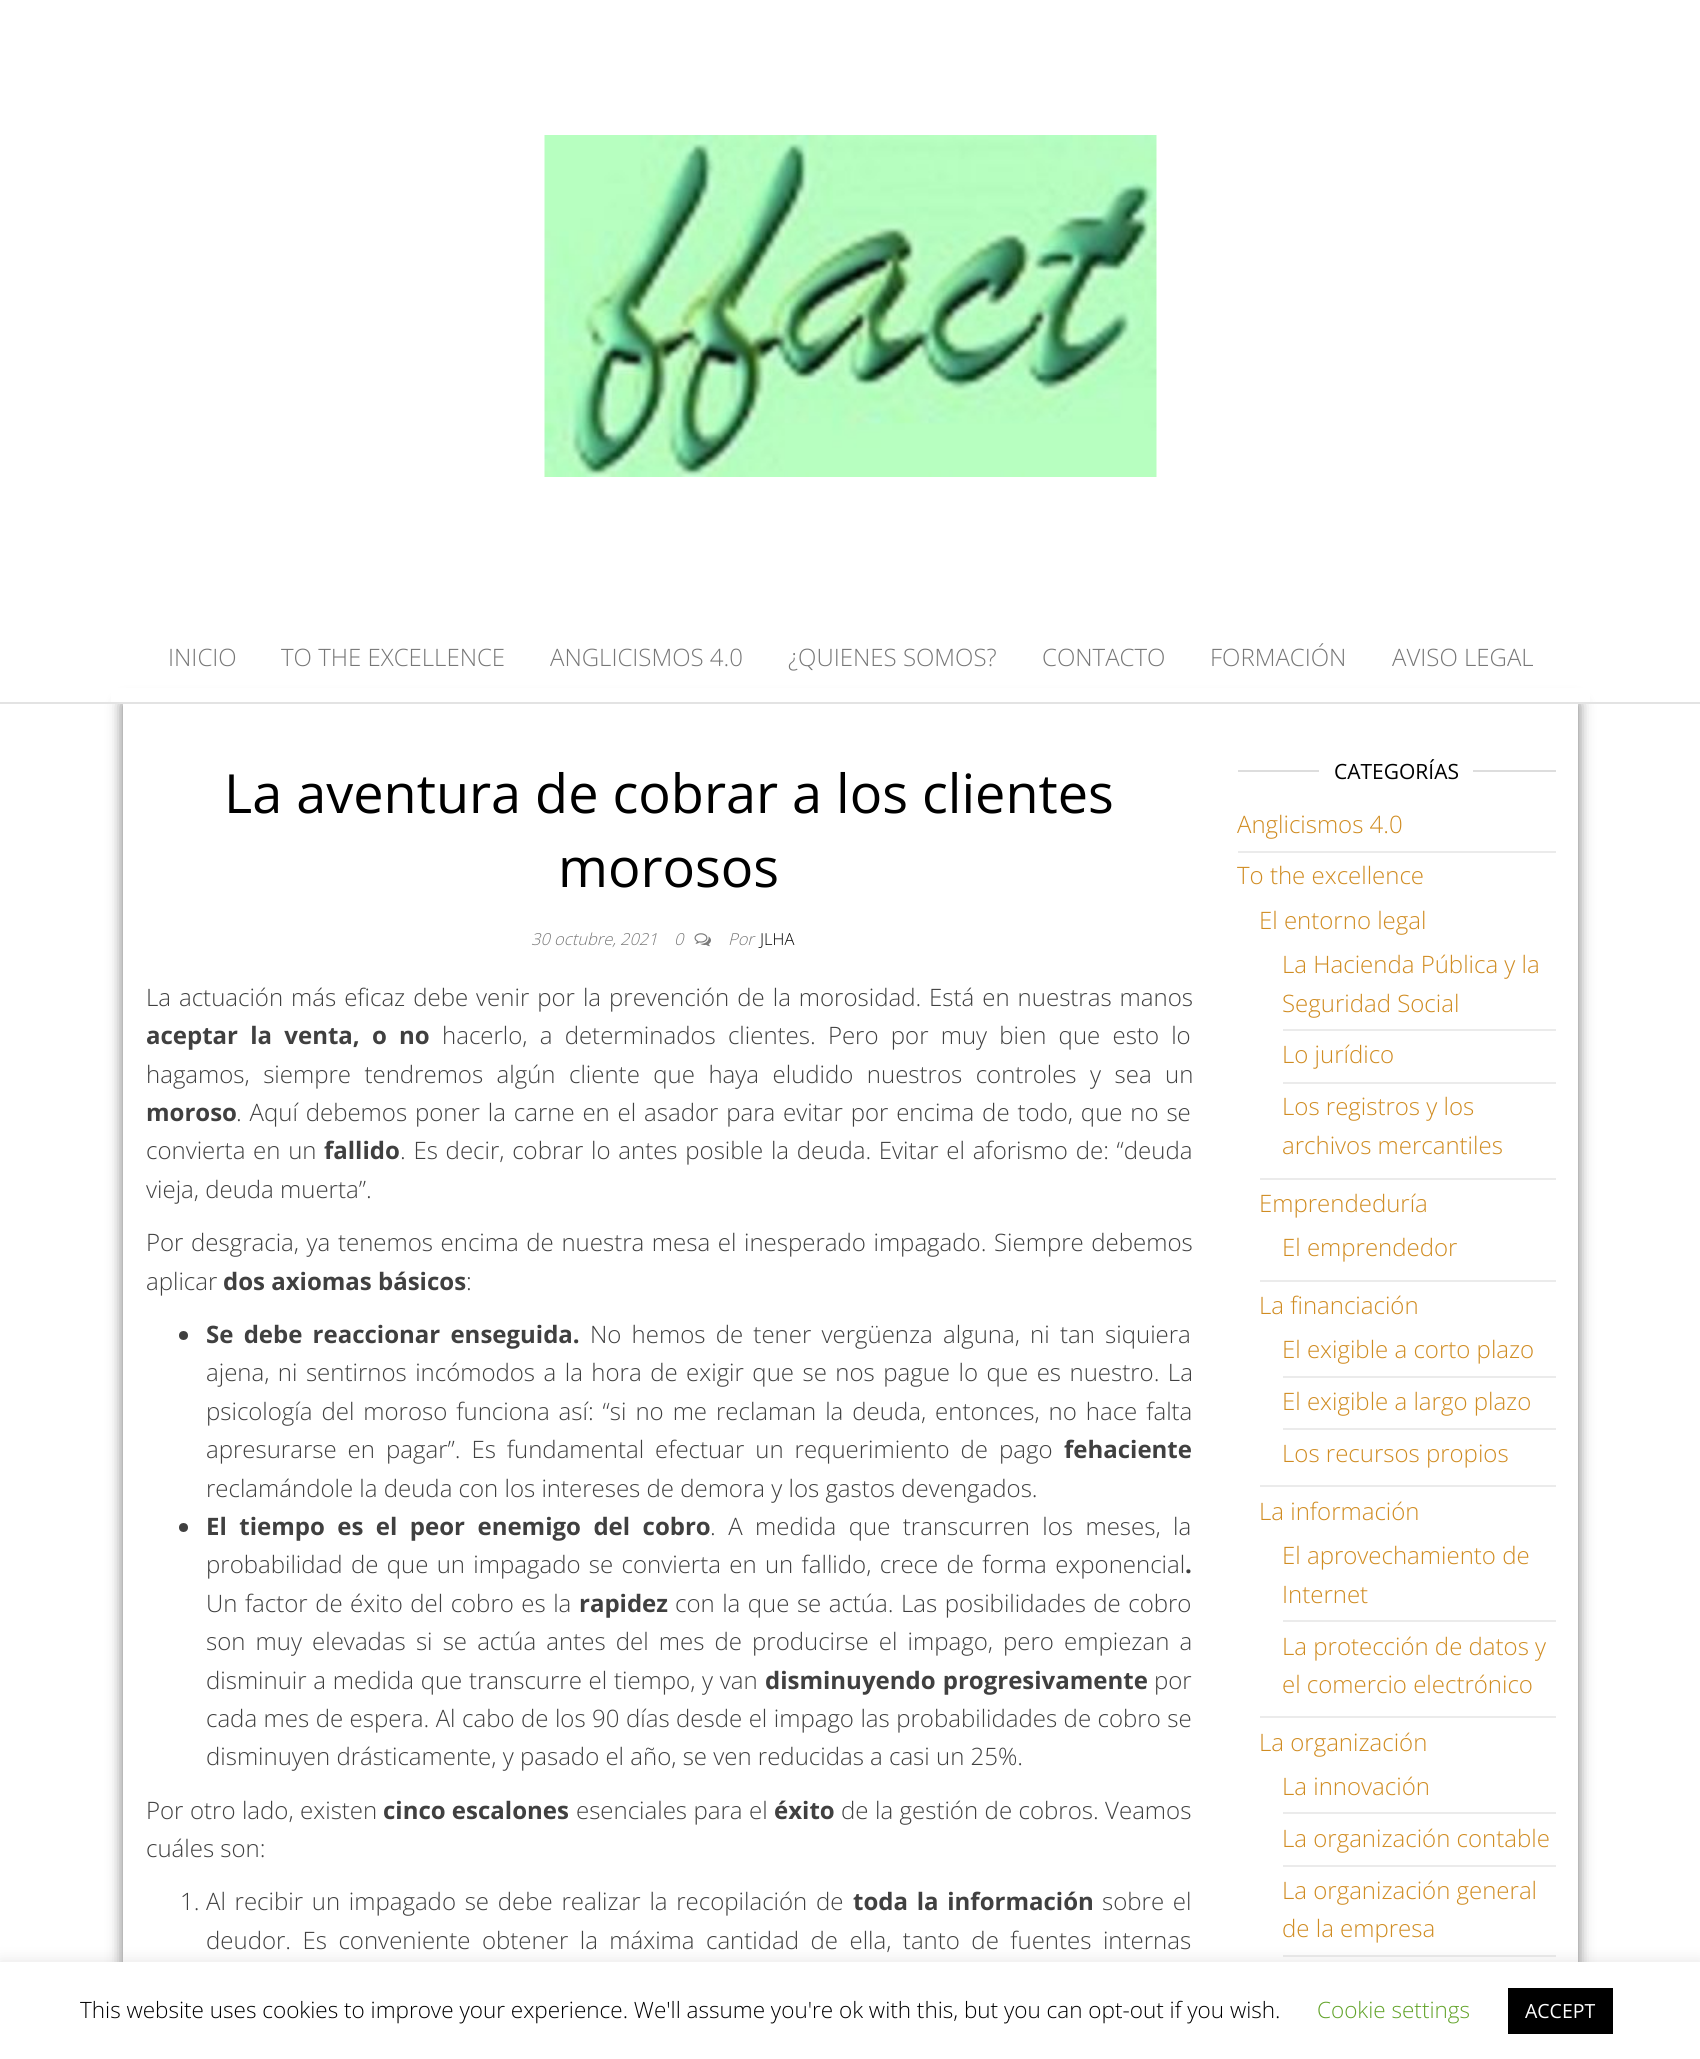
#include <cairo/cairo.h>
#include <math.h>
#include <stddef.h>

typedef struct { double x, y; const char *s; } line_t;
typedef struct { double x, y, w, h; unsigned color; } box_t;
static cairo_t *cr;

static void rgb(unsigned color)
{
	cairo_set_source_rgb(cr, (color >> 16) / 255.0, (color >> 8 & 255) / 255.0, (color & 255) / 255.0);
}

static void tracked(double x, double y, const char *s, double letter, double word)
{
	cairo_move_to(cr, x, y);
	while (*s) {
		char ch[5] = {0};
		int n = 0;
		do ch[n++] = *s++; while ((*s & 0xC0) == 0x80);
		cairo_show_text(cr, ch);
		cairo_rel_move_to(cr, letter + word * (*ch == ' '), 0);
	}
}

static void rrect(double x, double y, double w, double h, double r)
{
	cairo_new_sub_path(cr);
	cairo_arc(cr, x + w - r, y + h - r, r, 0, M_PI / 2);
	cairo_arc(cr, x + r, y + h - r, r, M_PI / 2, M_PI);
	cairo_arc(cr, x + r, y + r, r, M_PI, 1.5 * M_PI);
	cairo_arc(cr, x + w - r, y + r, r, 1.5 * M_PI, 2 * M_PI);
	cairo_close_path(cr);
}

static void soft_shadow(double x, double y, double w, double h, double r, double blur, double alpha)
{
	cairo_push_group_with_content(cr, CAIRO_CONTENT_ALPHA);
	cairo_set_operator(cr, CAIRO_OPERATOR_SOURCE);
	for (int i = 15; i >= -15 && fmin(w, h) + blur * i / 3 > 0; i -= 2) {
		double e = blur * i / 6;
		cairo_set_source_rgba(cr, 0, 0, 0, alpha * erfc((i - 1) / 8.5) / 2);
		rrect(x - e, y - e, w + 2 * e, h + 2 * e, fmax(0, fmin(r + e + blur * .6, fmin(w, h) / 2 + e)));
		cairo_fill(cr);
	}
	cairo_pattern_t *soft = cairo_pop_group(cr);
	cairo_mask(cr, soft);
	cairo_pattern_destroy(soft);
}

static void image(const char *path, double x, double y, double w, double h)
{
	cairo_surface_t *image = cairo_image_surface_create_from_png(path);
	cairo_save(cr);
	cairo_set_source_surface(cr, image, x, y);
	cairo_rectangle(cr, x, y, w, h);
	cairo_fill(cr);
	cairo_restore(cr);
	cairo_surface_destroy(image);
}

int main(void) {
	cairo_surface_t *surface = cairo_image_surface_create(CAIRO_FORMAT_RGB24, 1700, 2059);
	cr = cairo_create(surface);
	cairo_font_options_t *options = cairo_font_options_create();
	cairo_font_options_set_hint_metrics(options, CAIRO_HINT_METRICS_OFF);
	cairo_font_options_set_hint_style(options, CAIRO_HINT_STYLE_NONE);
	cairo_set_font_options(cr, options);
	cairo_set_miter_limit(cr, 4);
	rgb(0xffffff);
	cairo_paint(cr);
	image("img/1.png", 544, 135, 613, 342);
	cairo_save(cr);
	cairo_set_fill_rule(cr, CAIRO_FILL_RULE_EVEN_ODD);
	cairo_new_path(cr);
	cairo_move_to(cr, 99, 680);
	cairo_line_to(cr, 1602, 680);
	cairo_line_to(cr, 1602, 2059);
	cairo_line_to(cr, 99, 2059);
	cairo_close_path(cr);
	cairo_move_to(cr, 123, 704);
	cairo_line_to(cr, 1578, 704);
	cairo_line_to(cr, 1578, 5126);
	cairo_line_to(cr, 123, 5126);
	cairo_close_path(cr);
	cairo_clip(cr);
	rgb(0x000000);
	soft_shadow(123, 704, 1455, 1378, 0, 7.5, 0.55);
	cairo_restore(cr);
	rgb(0xffffff);
	cairo_rectangle(cr, 111, 688, 1479, 14);
	cairo_fill(cr);
	rgb(0xe3e3e3);
	cairo_rectangle(cr, 0, 702, 1700, 2);
	cairo_fill(cr);
	image("img/2.png", 694, 933, 17, 14);
	rgb(0x404040);
	cairo_arc(cr, 183.5, 1335.5, 4.5, 0, 2 * M_PI);
	cairo_fill(cr);
	cairo_arc(cr, 183.5, 1527.5, 4.5, 0, 2 * M_PI);
	cairo_fill(cr);
	{
		static const box_t items[] = {
			{1238, 770, 318, 2, 0xdddddd},
			{1319, 770, 154, 2, 0xffffff},
			{1238, 851, 318, 2, 0xebebeb},
			{1260, 1178, 296, 2, 0xebebeb},
			{1283, 1029, 273, 2, 0xebebeb},
			{1283, 1082, 273, 2, 0xebebeb},
			{1260, 1280, 296, 2, 0xebebeb},
			{1260, 1485, 296, 2, 0xebebeb},
			{1283, 1376, 273, 2, 0xebebeb},
			{1283, 1428, 273, 2, 0xebebeb},
			{1260, 1716, 296, 2, 0xebebeb},
			{1283, 1620, 273, 2, 0xebebeb},
			{1283, 1812, 273, 2, 0xebebeb},
			{1283, 1865, 273, 2, 0xebebeb},
			{1283, 1955, 273, 2, 0xebebeb},
		};
		for (size_t i = 0; i < sizeof items / sizeof *items; i++) {
			rgb(items[i].color);
			cairo_rectangle(cr, items[i].x, items[i].y, items[i].w, items[i].h);
			cairo_fill(cr);
		}
	}
	rgb(0xacabab);
	soft_shadow(0, 1961, 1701, 97, 0, 7.5, 0.3);
	rgb(0xffffff);
	cairo_rectangle(cr, 0, 1962, 1700, 97);
	cairo_fill(cr);
	rgb(0x000000);
	cairo_rectangle(cr, 1508, 1988, 105, 46);
	cairo_fill(cr);
	cairo_select_font_face(cr, "Open Sans Light", CAIRO_FONT_SLANT_NORMAL, CAIRO_FONT_WEIGHT_NORMAL);
	cairo_set_font_size(cr, 24);
	rgb(0x777777);
	{
		static const line_t items[] = {
			{168, 666, "INICIO"},
			{281, 666, "TO THE EXCELLENCE"},
			{550, 666, "ANGLICISMOS 4.0"},
			{788, 666, "¿QUIENES SOMOS?"},
			{1042, 666, "CONTACTO"},
			{1210, 666, "FORMACIÓN"},
			{1392, 666, "AVISO LEGAL"},
		};
		for (size_t i = 0; i < sizeof items / sizeof *items; i++) {
			cairo_move_to(cr, items[i].x, items[i].y);
			cairo_show_text(cr, items[i].s);
		}
	}
	cairo_select_font_face(cr, "Open Sans", CAIRO_FONT_SLANT_NORMAL, CAIRO_FONT_WEIGHT_NORMAL);
	cairo_set_font_size(cr, 54);
	rgb(0x000000);
	cairo_move_to(cr, 224, 813);
	cairo_show_text(cr, "La aventura de cobrar a los clientes");
	cairo_move_to(cr, 558, 887);
	cairo_show_text(cr, "morosos");
	cairo_select_font_face(cr, "Open Sans Light", CAIRO_FONT_SLANT_ITALIC, CAIRO_FONT_WEIGHT_NORMAL);
	cairo_set_font_size(cr, 16.5);
	rgb(0x777777);
	{
		static const line_t items[] = {
			{531, 945, "30 octubre, 2021"},
			{674, 945, "0"},
			{728, 945, "Por"},
		};
		for (size_t i = 0; i < sizeof items / sizeof *items; i++) {
			cairo_move_to(cr, items[i].x, items[i].y);
			cairo_show_text(cr, items[i].s);
		}
	}
	cairo_select_font_face(cr, "Open Sans Light", CAIRO_FONT_SLANT_NORMAL, CAIRO_FONT_WEIGHT_NORMAL);
	rgb(0x000000);
	cairo_move_to(cr, 760, 945);
	cairo_show_text(cr, "JLHA");
	cairo_set_font_size(cr, 24);
	rgb(0x404040);
	tracked(146, 1006, "La actuación más eficaz debe venir por la prevención de la morosidad. Está en nuestras manos", 0, 1.75);
	cairo_select_font_face(cr, "Open Sans", CAIRO_FONT_SLANT_NORMAL, CAIRO_FONT_WEIGHT_BOLD);
	tracked(146, 1044, "aceptar la venta, o no", 0, 6);
	cairo_select_font_face(cr, "Open Sans Light", CAIRO_FONT_SLANT_NORMAL, CAIRO_FONT_WEIGHT_NORMAL);
	tracked(442, 1044, "hacerlo, a determinados clientes. Pero por muy bien que esto lo", 0, 6);
	tracked(146, 1083, "hagamos, siempre tendremos algún cliente que haya eludido nuestros controles y sea un", 0, 7.25);
	cairo_select_font_face(cr, "Open Sans", CAIRO_FONT_SLANT_NORMAL, CAIRO_FONT_WEIGHT_BOLD);
	cairo_move_to(cr, 146, 1121);
	cairo_show_text(cr, "moroso");
	cairo_select_font_face(cr, "Open Sans Light", CAIRO_FONT_SLANT_NORMAL, CAIRO_FONT_WEIGHT_NORMAL);
	tracked(236, 1121, ". Aquí debemos poner la carne en el asador para evitar por encima de todo, que no se", 0, 1.6);
	tracked(146, 1159, "convierta en un", 0, 1.5);
	cairo_select_font_face(cr, "Open Sans", CAIRO_FONT_SLANT_NORMAL, CAIRO_FONT_WEIGHT_BOLD);
	cairo_move_to(cr, 324, 1159);
	cairo_show_text(cr, "fallido");
	cairo_select_font_face(cr, "Open Sans Light", CAIRO_FONT_SLANT_NORMAL, CAIRO_FONT_WEIGHT_NORMAL);
	tracked(400, 1159, ". Es decir, cobrar lo antes posible la deuda. Evitar el aforismo de: “deuda", 0, 1.5);
	cairo_move_to(cr, 146, 1198);
	cairo_show_text(cr, "vieja, deuda muerta”.");
	tracked(146, 1251, "Por desgracia, ya tenemos encima de nuestra mesa el inesperado impagado. Siempre debemos", 0, 1.4);
	cairo_move_to(cr, 146, 1290);
	cairo_show_text(cr, "aplicar");
	cairo_select_font_face(cr, "Open Sans", CAIRO_FONT_SLANT_NORMAL, CAIRO_FONT_WEIGHT_BOLD);
	cairo_move_to(cr, 223, 1290);
	cairo_show_text(cr, "dos axiomas básicos");
	cairo_select_font_face(cr, "Open Sans Light", CAIRO_FONT_SLANT_NORMAL, CAIRO_FONT_WEIGHT_NORMAL);
	cairo_move_to(cr, 466, 1290);
	cairo_show_text(cr, ":");
	cairo_select_font_face(cr, "Open Sans", CAIRO_FONT_SLANT_NORMAL, CAIRO_FONT_WEIGHT_BOLD);
	tracked(206, 1343, "Se debe reaccionar enseguida.", 0, 4);
	cairo_select_font_face(cr, "Open Sans Light", CAIRO_FONT_SLANT_NORMAL, CAIRO_FONT_WEIGHT_NORMAL);
	tracked(590, 1343, "No hemos de tener vergüenza alguna, ni tan siquiera", 0, 4);
	tracked(206, 1381, "ajena, ni sentirnos incómodos a la hora de exigir que se nos pague lo que es nuestro. La", 0, 2.25);
	tracked(206, 1420, "psicología del moroso funciona así: “si no me reclaman la deuda, entonces, no hace falta", 0, 2.75);
	tracked(206, 1458, "apresurarse en pagar”. Es fundamental efectuar un requerimiento de pago", 0, 4.75);
	cairo_select_font_face(cr, "Open Sans", CAIRO_FONT_SLANT_NORMAL, CAIRO_FONT_WEIGHT_BOLD);
	cairo_move_to(cr, 1064, 1458);
	cairo_show_text(cr, "fehaciente");
	cairo_select_font_face(cr, "Open Sans Light", CAIRO_FONT_SLANT_NORMAL, CAIRO_FONT_WEIGHT_NORMAL);
	cairo_move_to(cr, 206, 1497);
	cairo_show_text(cr, "reclamándole la deuda con los intereses de demora y los gastos devengados.");
	cairo_select_font_face(cr, "Open Sans", CAIRO_FONT_SLANT_NORMAL, CAIRO_FONT_WEIGHT_BOLD);
	tracked(206, 1535, "El tiempo es el peor enemigo del cobro", 0, 6.25);
	cairo_select_font_face(cr, "Open Sans Light", CAIRO_FONT_SLANT_NORMAL, CAIRO_FONT_WEIGHT_NORMAL);
	tracked(710, 1535, ". A medida que transcurren los meses, la", 0, 6.25);
	tracked(206, 1573, "probabilidad de que un impagado se convierta en un fallido, crece de forma exponencial", 0, 2.1);
	cairo_select_font_face(cr, "Open Sans", CAIRO_FONT_SLANT_NORMAL, CAIRO_FONT_WEIGHT_BOLD);
	cairo_move_to(cr, 1185, 1573);
	cairo_show_text(cr, ".");
	cairo_select_font_face(cr, "Open Sans Light", CAIRO_FONT_SLANT_NORMAL, CAIRO_FONT_WEIGHT_NORMAL);
	tracked(206, 1612, "Un factor de éxito del cobro es la", 0, 1.25);
	cairo_select_font_face(cr, "Open Sans", CAIRO_FONT_SLANT_NORMAL, CAIRO_FONT_WEIGHT_BOLD);
	cairo_move_to(cr, 579, 1612);
	cairo_show_text(cr, "rapidez");
	cairo_select_font_face(cr, "Open Sans Light", CAIRO_FONT_SLANT_NORMAL, CAIRO_FONT_WEIGHT_NORMAL);
	tracked(675, 1612, "con la que se actúa. Las posibilidades de cobro", 0, 1.25);
	tracked(206, 1650, "son muy elevadas si se actúa antes del mes de producirse el impago, pero empiezan a", 0, 3.9);
	tracked(206, 1689, "disminuir a medida que transcurre el tiempo, y van", 0, 0.5);
	cairo_select_font_face(cr, "Open Sans", CAIRO_FONT_SLANT_NORMAL, CAIRO_FONT_WEIGHT_BOLD);
	tracked(765, 1689, "disminuyendo progresivamente", 0, 1);
	cairo_select_font_face(cr, "Open Sans Light", CAIRO_FONT_SLANT_NORMAL, CAIRO_FONT_WEIGHT_NORMAL);
	cairo_move_to(cr, 1154, 1689);
	cairo_show_text(cr, "por");
	tracked(206, 1727, "cada mes de espera. Al cabo de los 90 días desde el impago las probabilidades de cobro se", 0, 0.25);
	cairo_move_to(cr, 206, 1765);
	cairo_show_text(cr, "disminuyen drásticamente, y pasado el año, se ven reducidas a casi un 25%.");
	tracked(146, 1819, "Por otro lado, existen", 0, 0.25);
	cairo_select_font_face(cr, "Open Sans", CAIRO_FONT_SLANT_NORMAL, CAIRO_FONT_WEIGHT_BOLD);
	cairo_move_to(cr, 383, 1819);
	cairo_show_text(cr, "cinco escalones");
	cairo_select_font_face(cr, "Open Sans Light", CAIRO_FONT_SLANT_NORMAL, CAIRO_FONT_WEIGHT_NORMAL);
	tracked(576, 1819, "esenciales para el", 0, 0.25);
	cairo_select_font_face(cr, "Open Sans", CAIRO_FONT_SLANT_NORMAL, CAIRO_FONT_WEIGHT_BOLD);
	cairo_move_to(cr, 774, 1819);
	cairo_show_text(cr, "éxito");
	cairo_select_font_face(cr, "Open Sans Light", CAIRO_FONT_SLANT_NORMAL, CAIRO_FONT_WEIGHT_NORMAL);
	tracked(841, 1819, "de la gestión de cobros. Veamos", 0, 0.25);
	cairo_move_to(cr, 146, 1857);
	cairo_show_text(cr, "cuáles son:");
	cairo_move_to(cr, 180, 1910);
	cairo_show_text(cr, "1.");
	tracked(206, 1910, "Al recibir un impagado se debe realizar la recopilación de", 0, 2.5);
	cairo_select_font_face(cr, "Open Sans", CAIRO_FONT_SLANT_NORMAL, CAIRO_FONT_WEIGHT_BOLD);
	tracked(853, 1910, "toda la información", 0, 2.5);
	cairo_select_font_face(cr, "Open Sans Light", CAIRO_FONT_SLANT_NORMAL, CAIRO_FONT_WEIGHT_NORMAL);
	tracked(1102, 1910, "sobre el", 0, 2.5);
	tracked(206, 1949, "deudor. Es conveniente obtener la máxima cantidad de ella, tanto de fuentes internas", 0, 5.25);
	cairo_select_font_face(cr, "Open Sans", CAIRO_FONT_SLANT_NORMAL, CAIRO_FONT_WEIGHT_NORMAL);
	cairo_set_font_size(cr, 21);
	rgb(0x000000);
	cairo_move_to(cr, 1334, 779);
	cairo_show_text(cr, "CATEGORÍAS");
	cairo_select_font_face(cr, "Open Sans Light", CAIRO_FONT_SLANT_NORMAL, CAIRO_FONT_WEIGHT_NORMAL);
	cairo_set_font_size(cr, 24);
	rgb(0xd08c22);
	{
		static const line_t items[] = {
			{1237, 833, "Anglicismos 4.0"},
			{1237, 884, "To the excellence"},
			{1259, 929, "El entorno legal"},
			{1282, 973, "La Hacienda Pública y la"},
			{1282, 1012, "Seguridad Social"},
			{1282, 1063, "Lo jurídico"},
			{1282, 1115, "Los registros y los"},
			{1282, 1154, "archivos mercantiles"},
			{1259, 1212, "Emprendeduría"},
			{1282, 1256, "El emprendedor"},
			{1259, 1314, "La financiación"},
			{1282, 1358, "El exigible a corto plazo"},
			{1282, 1410, "El exigible a largo plazo"},
			{1282, 1462, "Los recursos propios"},
			{1259, 1520, "La información"},
			{1282, 1564, "El aprovechamiento de"},
			{1282, 1603, "Internet"},
			{1282, 1655, "La protección de datos y"},
			{1282, 1693, "el comercio electrónico"},
			{1259, 1751, "La organización"},
			{1282, 1795, "La innovación"},
			{1282, 1847, "La organización contable"},
			{1282, 1899, "La organización general"},
			{1282, 1937, "de la empresa"},
		};
		for (size_t i = 0; i < sizeof items / sizeof *items; i++) {
			cairo_move_to(cr, items[i].x, items[i].y);
			cairo_show_text(cr, items[i].s);
		}
	}
	cairo_set_font_size(cr, 22.5);
	rgb(0x000000);
	cairo_move_to(cr, 80, 2018);
	cairo_show_text(cr, "This website uses cookies to improve your experience. We'll assume you're ok with this, but you can opt-out if you wish.");
	rgb(0x62a329);
	cairo_move_to(cr, 1317, 2018);
	cairo_show_text(cr, "Cookie settings");
	cairo_select_font_face(cr, "Open Sans", CAIRO_FONT_SLANT_NORMAL, CAIRO_FONT_WEIGHT_NORMAL);
	cairo_set_font_size(cr, 19.5);
	rgb(0xffffff);
	cairo_move_to(cr, 1525, 2018);
	cairo_show_text(cr, "ACCEPT");
	cairo_surface_write_to_png(surface, "page.png");
	cairo_font_options_destroy(options);
	cairo_destroy(cr);
	cairo_surface_destroy(surface);
	return 0;
}
